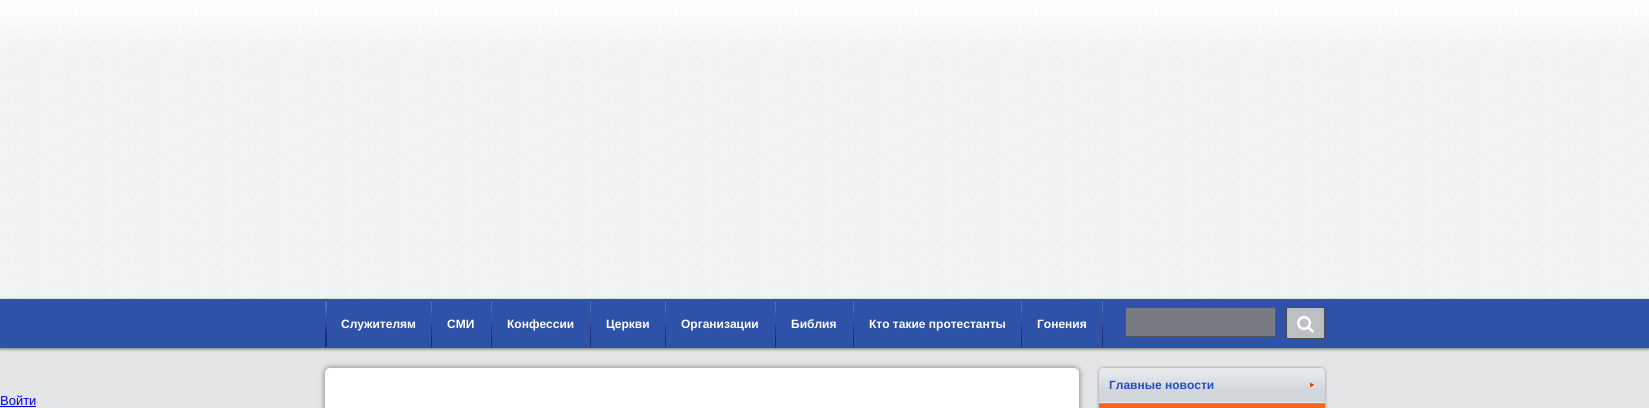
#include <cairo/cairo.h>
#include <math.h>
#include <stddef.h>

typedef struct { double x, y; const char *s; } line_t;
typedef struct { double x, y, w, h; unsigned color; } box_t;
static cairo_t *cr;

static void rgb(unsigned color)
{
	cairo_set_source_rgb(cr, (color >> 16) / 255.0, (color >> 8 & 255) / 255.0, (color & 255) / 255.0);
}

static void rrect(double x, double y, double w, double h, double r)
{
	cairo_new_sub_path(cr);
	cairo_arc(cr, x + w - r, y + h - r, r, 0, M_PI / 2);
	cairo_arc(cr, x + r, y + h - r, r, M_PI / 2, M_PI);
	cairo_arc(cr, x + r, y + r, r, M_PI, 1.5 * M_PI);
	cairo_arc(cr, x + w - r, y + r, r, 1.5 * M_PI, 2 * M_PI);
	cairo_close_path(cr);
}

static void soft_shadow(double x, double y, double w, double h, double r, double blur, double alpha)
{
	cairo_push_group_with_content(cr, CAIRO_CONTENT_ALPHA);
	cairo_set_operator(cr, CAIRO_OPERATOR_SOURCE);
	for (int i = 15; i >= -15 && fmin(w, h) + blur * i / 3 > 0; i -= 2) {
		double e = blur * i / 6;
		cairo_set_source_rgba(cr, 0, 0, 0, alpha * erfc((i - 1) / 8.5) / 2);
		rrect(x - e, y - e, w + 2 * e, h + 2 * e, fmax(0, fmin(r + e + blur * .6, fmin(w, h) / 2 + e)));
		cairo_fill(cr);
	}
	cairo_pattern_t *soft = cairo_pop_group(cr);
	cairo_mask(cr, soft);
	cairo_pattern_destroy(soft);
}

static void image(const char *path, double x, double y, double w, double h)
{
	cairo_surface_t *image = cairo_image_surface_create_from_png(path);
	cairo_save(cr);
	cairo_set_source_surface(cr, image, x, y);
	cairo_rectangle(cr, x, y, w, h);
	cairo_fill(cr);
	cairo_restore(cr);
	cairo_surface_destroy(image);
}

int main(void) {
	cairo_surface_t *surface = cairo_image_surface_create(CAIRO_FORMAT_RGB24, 1649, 408);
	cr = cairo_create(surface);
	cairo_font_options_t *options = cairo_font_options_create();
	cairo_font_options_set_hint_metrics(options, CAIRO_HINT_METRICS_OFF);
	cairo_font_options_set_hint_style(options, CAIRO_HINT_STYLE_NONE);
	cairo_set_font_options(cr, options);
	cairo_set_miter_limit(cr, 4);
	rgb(0xffffff);
	cairo_paint(cr);
	image("img/1.png", 0, 0, 1649, 299);
	rgb(0xe3e4e6);
	cairo_rectangle(cr, 0, 348, 1649, 60);
	cairo_fill(cr);
	rgb(0x000000);
	soft_shadow(0, 300, 1649, 49, 0, 1.5, 0.5);
	rgb(0x2f52a9);
	cairo_rectangle(cr, 0, 299, 1649, 49);
	cairo_fill(cr);
	image("img/2.png", 325, 299, 2, 49);
	image("img/3.png", 431, 299, 1, 49);
	image("img/3.png", 491, 299, 1, 49);
	image("img/3.png", 590, 299, 1, 49);
	image("img/3.png", 665, 299, 1, 49);
	image("img/3.png", 775, 299, 1, 49);
	image("img/3.png", 853, 299, 1, 49);
	image("img/3.png", 1102, 299, 1, 49);
	image("img/3.png", 1021, 299, 1, 49);
	rgb(0x787c82);
	cairo_rectangle(cr, 1125.5, 307.5, 150, 29);
	cairo_fill_preserve(cr);
	rgb(0x53565a);
	cairo_set_line_width(cr, 1);
	cairo_stroke(cr);
	rgb(0xbdc0c2);
	rrect(1286.5, 307.5, 38, 31, 1.5);
	cairo_fill_preserve(cr);
	rgb(0x47494d);
	cairo_stroke(cr);
	image("img/4.png", 1297, 316, 17, 17);
	rgb(0x000000);
	soft_shadow(325, 368, 754, 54, 5, 3, 0.5);
	rgb(0xffffff);
	rrect(325, 368, 754, 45, 5);
	cairo_fill(cr);
	rgb(0x000000);
	soft_shadow(1099, 368, 226, 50, 5, 1.5, 0.4);
	rgb(0xd2d7db);
	cairo_new_path(cr);
	cairo_move_to(cr, 1104, 368);
	cairo_line_to(cr, 1320, 368);
	cairo_curve_to(cr, 1323, 368, 1325, 370, 1325, 373);
	cairo_line_to(cr, 1325, 403);
	cairo_line_to(cr, 1099, 403);
	cairo_line_to(cr, 1099, 373);
	cairo_curve_to(cr, 1099, 370, 1101, 368, 1104, 368);
	cairo_close_path(cr);
	cairo_fill(cr);
	image("img/5.png", 1099, 368, 226, 20);
	rgb(0xe9ebed);
	cairo_rectangle(cr, 1099, 402, 226, 1);
	cairo_fill(cr);
	image("img/6.png", 1310, 382, 5, 6);
	{
		static const box_t items[] = {
			{1099, 403, 226, 1, 0x939799},
			{1099, 404, 226, 4, 0xf66817},
			{0, 406, 36, 1, 0x0000ee},
		};
		for (size_t i = 0; i < sizeof items / sizeof *items; i++) {
			rgb(items[i].color);
			cairo_rectangle(cr, items[i].x, items[i].y, items[i].w, items[i].h);
			cairo_fill(cr);
		}
	}
	cairo_select_font_face(cr, "Liberation Sans", CAIRO_FONT_SLANT_NORMAL, CAIRO_FONT_WEIGHT_BOLD);
	cairo_set_font_size(cr, 12);
	rgb(0xffffff);
	{
		static const line_t items[] = {
			{341, 328, "Служителям"},
			{447, 328, "СМИ"},
			{507, 328, "Конфессии"},
			{606, 328, "Церкви"},
			{681, 328, "Организации"},
			{791, 328, "Библия"},
			{869, 328, "Кто такие протестанты"},
			{1037, 328, "Гонения"},
		};
		for (size_t i = 0; i < sizeof items / sizeof *items; i++) {
			cairo_move_to(cr, items[i].x, items[i].y);
			cairo_show_text(cr, items[i].s);
		}
	}
	rgb(0x224fc1);
	cairo_move_to(cr, 1109, 389);
	cairo_show_text(cr, "Главные новости");
	cairo_select_font_face(cr, "Liberation Sans", CAIRO_FONT_SLANT_NORMAL, CAIRO_FONT_WEIGHT_NORMAL);
	cairo_set_font_size(cr, 13);
	rgb(0x0000ee);
	cairo_move_to(cr, 0, 405);
	cairo_show_text(cr, "Войти");
	cairo_surface_write_to_png(surface, "page.png");
	cairo_font_options_destroy(options);
	cairo_destroy(cr);
	cairo_surface_destroy(surface);
	return 0;
}
